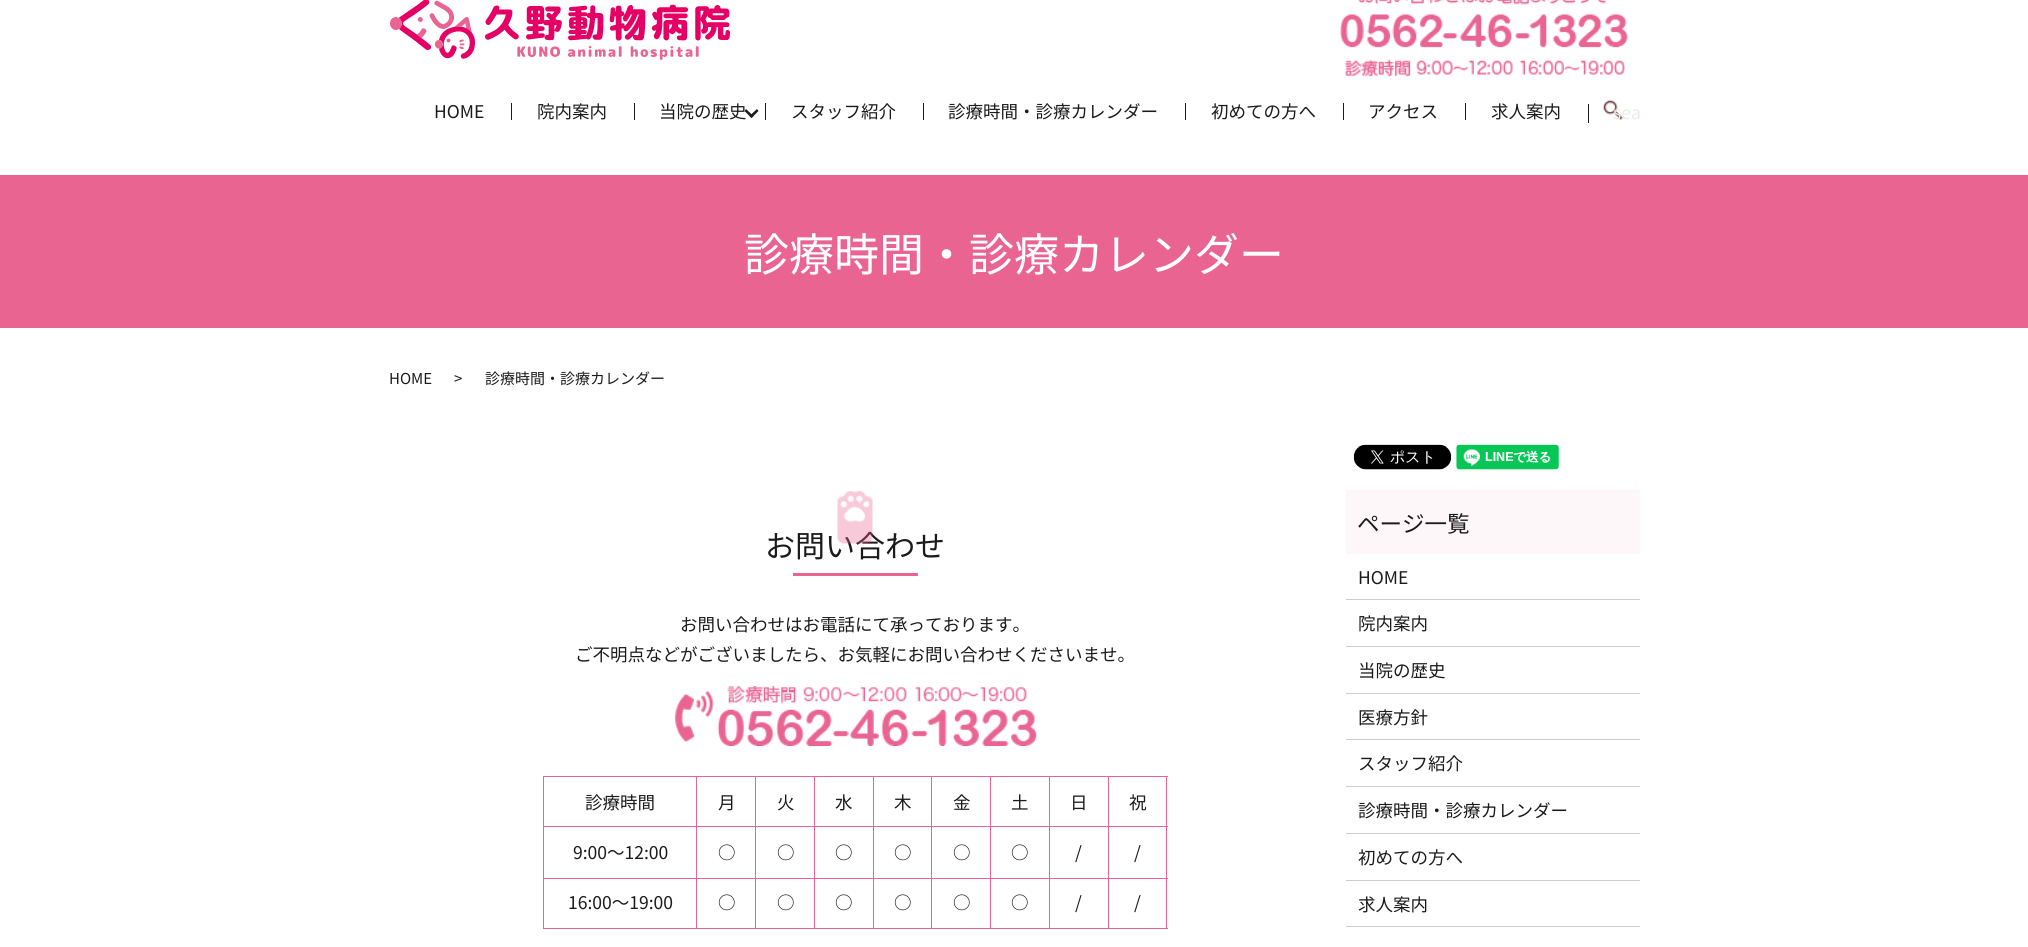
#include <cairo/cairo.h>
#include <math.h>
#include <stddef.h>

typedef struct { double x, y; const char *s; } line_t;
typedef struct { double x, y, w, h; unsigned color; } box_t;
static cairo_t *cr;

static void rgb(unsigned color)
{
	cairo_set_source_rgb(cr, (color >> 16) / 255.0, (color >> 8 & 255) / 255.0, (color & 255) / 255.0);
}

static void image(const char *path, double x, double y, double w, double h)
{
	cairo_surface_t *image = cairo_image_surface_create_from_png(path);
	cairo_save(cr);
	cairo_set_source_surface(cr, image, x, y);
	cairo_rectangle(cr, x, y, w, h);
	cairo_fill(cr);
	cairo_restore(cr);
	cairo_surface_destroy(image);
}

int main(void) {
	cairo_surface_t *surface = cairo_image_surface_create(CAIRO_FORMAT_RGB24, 2028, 947);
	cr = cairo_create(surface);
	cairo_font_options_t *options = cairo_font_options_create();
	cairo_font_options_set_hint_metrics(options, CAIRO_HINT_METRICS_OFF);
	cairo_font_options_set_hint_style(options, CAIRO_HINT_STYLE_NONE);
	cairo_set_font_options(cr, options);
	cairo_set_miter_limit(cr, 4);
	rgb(0xffffff);
	cairo_paint(cr);
	image("img/1.png", 390, 0, 340, 60);
	image("img/2.png", 1340, 0, 288, 77);
	rgb(0x1b1b1b);
	cairo_rectangle(cr, 511, 103, 1, 17);
	cairo_fill(cr);
	cairo_rectangle(cr, 634, 103, 1, 17);
	cairo_fill(cr);
	cairo_new_path(cr);
	cairo_move_to(cr, 758.5, 111);
	cairo_line_to(cr, 751.5, 118);
	cairo_line_to(cr, 749.5, 116);
	cairo_line_to(cr, 757, 109);
	cairo_close_path(cr);
	cairo_fill(cr);
	cairo_new_path(cr);
	cairo_move_to(cr, 753.5, 116);
	cairo_line_to(cr, 751.5, 118);
	cairo_line_to(cr, 744.5, 111);
	cairo_line_to(cr, 746, 109);
	cairo_close_path(cr);
	cairo_fill(cr);
	{
		static const box_t items[] = {
			{765, 103, 1, 17, 0x1b1b1b},
			{923, 103, 1, 17, 0x1b1b1b},
			{1185, 103, 1, 17, 0x1b1b1b},
			{1343, 103, 1, 17, 0x1b1b1b},
			{1465, 103, 1, 17, 0x1b1b1b},
		};
		for (size_t i = 0; i < sizeof items / sizeof *items; i++) {
			rgb(items[i].color);
			cairo_rectangle(cr, items[i].x, items[i].y, items[i].w, items[i].h);
			cairo_fill(cr);
		}
	}
	image("img/3.png", 1603, 100, 20, 20);
	{
		static const box_t items[] = {
			{1588, 104, 1, 19, 0x1b1b1b},
			{0, 175, 2028, 153, 0xea6491},
			{793, 573, 125, 3, 0xea6491},
		};
		for (size_t i = 0; i < sizeof items / sizeof *items; i++) {
			rgb(items[i].color);
			cairo_rectangle(cr, items[i].x, items[i].y, items[i].w, items[i].h);
			cairo_fill(cr);
		}
	}
	image("img/5.png", 675, 686, 362, 60);
	{
		static const box_t items[] = {
			{1108, 776, 60, 1, 0xea6491},
			{1108, 826, 60, 1, 0xea6491},
			{1108, 878, 60, 1, 0xea6491},
			{1166, 878, 1, 51, 0xea6491},
			{1108, 928, 60, 1, 0xea6491},
			{1108, 878, 1, 51, 0xea6491},
			{1049, 878, 60, 1, 0xea6491},
			{1108, 826, 1, 53, 0xea6491},
			{1049, 826, 60, 1, 0xea6491},
			{1108, 776, 1, 52, 0xea6491},
			{1049, 776, 60, 1, 0xea6491},
			{1049, 928, 60, 1, 0xea6491},
			{1049, 878, 1, 51, 0xea6491},
			{990, 878, 60, 1, 0xea6491},
			{1049, 826, 1, 53, 0xea6491},
			{990, 826, 60, 1, 0xea6491},
			{1049, 776, 1, 52, 0xea6491},
			{990, 776, 60, 1, 0xea6491},
			{990, 928, 60, 1, 0xea6491},
			{990, 878, 1, 51, 0xea6491},
			{931, 878, 60, 1, 0xea6491},
			{990, 826, 1, 53, 0xea6491},
			{931, 826, 60, 1, 0xea6491},
			{990, 776, 1, 52, 0xea6491},
			{931, 776, 60, 1, 0xea6491},
			{931, 928, 60, 1, 0xea6491},
			{931, 878, 1, 51, 0xea6491},
			{873, 878, 60, 1, 0xea6491},
			{931, 826, 1, 53, 0xea6491},
			{873, 826, 60, 1, 0xea6491},
			{931, 776, 1, 52, 0xea6491},
			{873, 776, 60, 1, 0xea6491},
			{873, 928, 60, 1, 0xea6491},
			{873, 878, 1, 51, 0xea6491},
			{814, 878, 60, 1, 0xea6491},
			{873, 826, 1, 53, 0xea6491},
			{814, 826, 60, 1, 0xea6491},
			{873, 776, 1, 52, 0xea6491},
			{814, 776, 60, 1, 0xea6491},
			{814, 928, 60, 1, 0xea6491},
			{814, 878, 1, 51, 0xea6491},
			{755, 878, 60, 1, 0xea6491},
			{814, 826, 1, 53, 0xea6491},
			{755, 826, 60, 1, 0xea6491},
			{814, 776, 1, 52, 0xea6491},
			{755, 776, 60, 1, 0xea6491},
			{755, 928, 60, 1, 0xea6491},
			{755, 878, 1, 51, 0xea6491},
			{696, 878, 60, 1, 0xea6491},
			{755, 826, 1, 53, 0xea6491},
			{696, 826, 60, 1, 0xea6491},
			{755, 776, 1, 52, 0xea6491},
			{696, 776, 60, 1, 0xea6491},
			{696, 928, 60, 1, 0xea6491},
			{696, 878, 1, 51, 0xea6491},
			{543, 878, 155, 1, 0xea6491},
			{696, 826, 1, 53, 0xea6491},
			{543, 826, 155, 1, 0xea6491},
			{696, 776, 1, 52, 0xea6491},
			{543, 776, 155, 1, 0xea6491},
			{543, 928, 155, 1, 0xea6491},
			{543, 878, 1, 51, 0xea6491},
			{543, 826, 1, 53, 0xea6491},
			{543, 776, 1, 52, 0xea6491},
			{1166, 826, 1, 53, 0xea6491},
			{1166, 776, 1, 52, 0xea6491},
		};
		for (size_t i = 0; i < sizeof items / sizeof *items; i++) {
			rgb(items[i].color);
			cairo_rectangle(cr, items[i].x, items[i].y, items[i].w, items[i].h);
			cairo_fill(cr);
		}
	}
	image("img/6.png", 1353, 444, 99, 26);
	image("img/7.png", 1456, 444, 103, 26);
	{
		static const box_t items[] = {
			{1346, 490, 294, 64, 0xfef7fa},
			{1346, 599, 294, 1, 0xcccccc},
			{1346, 646, 294, 1, 0xcccccc},
			{1346, 693, 294, 1, 0xcccccc},
			{1346, 739, 294, 1, 0xcccccc},
			{1346, 786, 294, 1, 0xcccccc},
			{1346, 833, 294, 1, 0xcccccc},
			{1346, 880, 294, 1, 0xcccccc},
			{1346, 926, 294, 1, 0xcccccc},
		};
		for (size_t i = 0; i < sizeof items / sizeof *items; i++) {
			rgb(items[i].color);
			cairo_rectangle(cr, items[i].x, items[i].y, items[i].w, items[i].h);
			cairo_fill(cr);
		}
	}
	cairo_select_font_face(cr, "Noto Sans JP", CAIRO_FONT_SLANT_NORMAL, CAIRO_FONT_WEIGHT_NORMAL);
	cairo_set_font_size(cr, 17.5);
	rgb(0x1b1b1b);
	{
		static const line_t items[] = {
			{434, 118, "HOME"},
			{537, 118, "院内案内"},
			{659, 118, "当院の歴史"},
			{791, 118, "スタッフ紹介"},
			{948, 118, "診療時間・診療カレンダー"},
			{1211, 118, "初めての方へ"},
			{1368, 118, "アクセス"},
			{1491, 118, "求人案内"},
		};
		for (size_t i = 0; i < sizeof items / sizeof *items; i++) {
			cairo_move_to(cr, items[i].x, items[i].y);
			cairo_show_text(cr, items[i].s);
		}
	}
	rgb(0xefeaea);
	cairo_move_to(cr, 1613, 119);
	cairo_show_text(cr, "sea");
	cairo_set_font_size(cr, 45);
	rgb(0xffffff);
	cairo_move_to(cr, 744, 271);
	cairo_show_text(cr, "診療時間・診療カレンダー");
	cairo_set_font_size(cr, 15);
	rgb(0x1b1b1b);
	{
		static const line_t items[] = {
			{389, 384, "HOME"},
			{454, 384, ">"},
			{485, 384, "診療時間・診療カレンダー"},
		};
		for (size_t i = 0; i < sizeof items / sizeof *items; i++) {
			cairo_move_to(cr, items[i].x, items[i].y);
			cairo_show_text(cr, items[i].s);
		}
	}
	cairo_set_font_size(cr, 30);
	cairo_move_to(cr, 765, 557);
	cairo_show_text(cr, "お問い合わせ");
	image("img/4.png", 837, 491, 36, 53);
	cairo_set_font_size(cr, 17.5);
	{
		static const line_t items[] = {
			{680, 631, "お問い合わせはお電話にて承っております。"},
			{575, 661, "ご不明点などがございましたら、お気軽にお問い合わせくださいませ。"},
			{585, 809, "診療時間"},
			{718, 809, "月"},
			{777, 809, "火"},
			{835, 809, "水"},
			{894, 809, "木"},
			{953, 809, "金"},
			{1011, 809, "土"},
			{1070, 809, "日"},
			{1129, 809, "祝"},
			{573, 859, "9:00～12:00"},
			{718, 859, "○"},
			{777, 859, "○"},
			{835, 859, "○"},
			{894, 859, "○"},
			{953, 859, "○"},
			{1011, 859, "○"},
			{1075, 859, "/"},
			{1134, 859, "/"},
			{568, 909, "16:00～19:00"},
			{718, 909, "○"},
			{777, 909, "○"},
			{835, 909, "○"},
			{894, 909, "○"},
			{953, 909, "○"},
			{1011, 909, "○"},
			{1075, 909, "/"},
			{1134, 909, "/"},
		};
		for (size_t i = 0; i < sizeof items / sizeof *items; i++) {
			cairo_move_to(cr, items[i].x, items[i].y);
			cairo_show_text(cr, items[i].s);
		}
	}
	cairo_set_font_size(cr, 22.5);
	cairo_move_to(cr, 1357, 532);
	cairo_show_text(cr, "ページ一覧");
	cairo_set_font_size(cr, 17.5);
	{
		static const line_t items[] = {
			{1358, 584, "HOME"},
			{1358, 630, "院内案内"},
			{1358, 677, "当院の歴史"},
			{1358, 724, "医療方針"},
			{1358, 770, "スタッフ紹介"},
			{1358, 817, "診療時間・診療カレンダー"},
			{1358, 864, "初めての方へ"},
			{1358, 911, "求人案内"},
		};
		for (size_t i = 0; i < sizeof items / sizeof *items; i++) {
			cairo_move_to(cr, items[i].x, items[i].y);
			cairo_show_text(cr, items[i].s);
		}
	}
	cairo_surface_write_to_png(surface, "page.png");
	cairo_font_options_destroy(options);
	cairo_destroy(cr);
	cairo_surface_destroy(surface);
	return 0;
}
